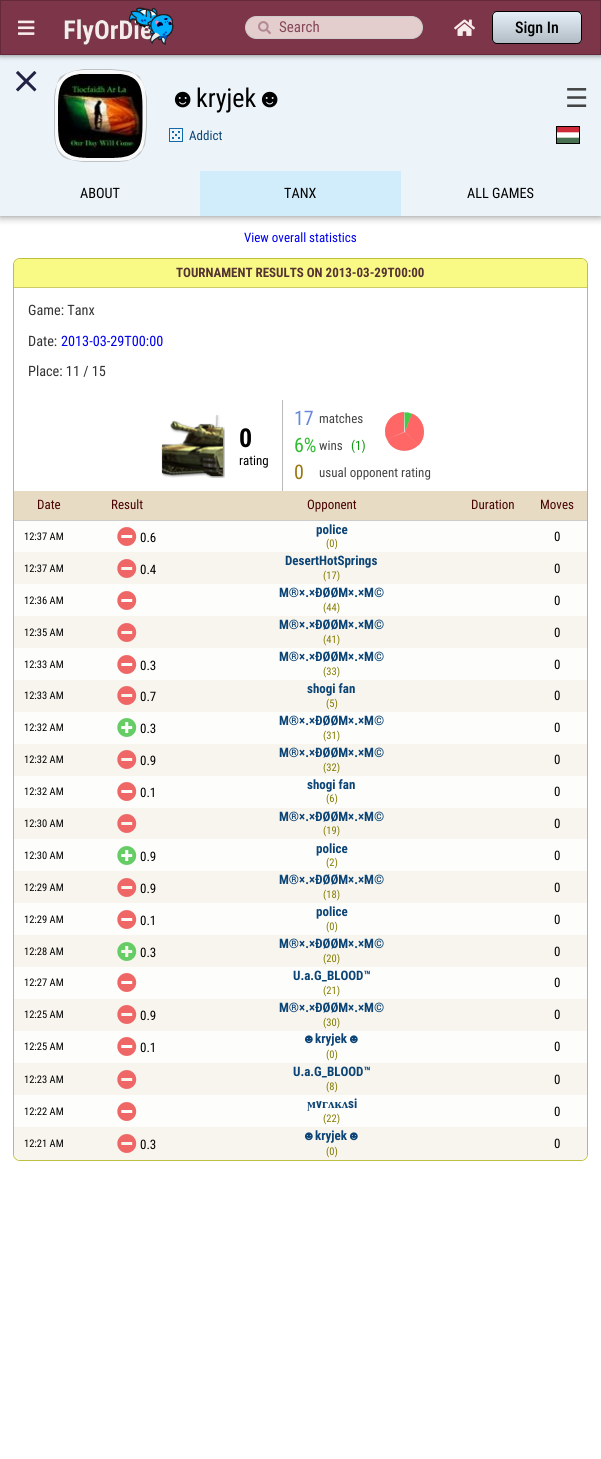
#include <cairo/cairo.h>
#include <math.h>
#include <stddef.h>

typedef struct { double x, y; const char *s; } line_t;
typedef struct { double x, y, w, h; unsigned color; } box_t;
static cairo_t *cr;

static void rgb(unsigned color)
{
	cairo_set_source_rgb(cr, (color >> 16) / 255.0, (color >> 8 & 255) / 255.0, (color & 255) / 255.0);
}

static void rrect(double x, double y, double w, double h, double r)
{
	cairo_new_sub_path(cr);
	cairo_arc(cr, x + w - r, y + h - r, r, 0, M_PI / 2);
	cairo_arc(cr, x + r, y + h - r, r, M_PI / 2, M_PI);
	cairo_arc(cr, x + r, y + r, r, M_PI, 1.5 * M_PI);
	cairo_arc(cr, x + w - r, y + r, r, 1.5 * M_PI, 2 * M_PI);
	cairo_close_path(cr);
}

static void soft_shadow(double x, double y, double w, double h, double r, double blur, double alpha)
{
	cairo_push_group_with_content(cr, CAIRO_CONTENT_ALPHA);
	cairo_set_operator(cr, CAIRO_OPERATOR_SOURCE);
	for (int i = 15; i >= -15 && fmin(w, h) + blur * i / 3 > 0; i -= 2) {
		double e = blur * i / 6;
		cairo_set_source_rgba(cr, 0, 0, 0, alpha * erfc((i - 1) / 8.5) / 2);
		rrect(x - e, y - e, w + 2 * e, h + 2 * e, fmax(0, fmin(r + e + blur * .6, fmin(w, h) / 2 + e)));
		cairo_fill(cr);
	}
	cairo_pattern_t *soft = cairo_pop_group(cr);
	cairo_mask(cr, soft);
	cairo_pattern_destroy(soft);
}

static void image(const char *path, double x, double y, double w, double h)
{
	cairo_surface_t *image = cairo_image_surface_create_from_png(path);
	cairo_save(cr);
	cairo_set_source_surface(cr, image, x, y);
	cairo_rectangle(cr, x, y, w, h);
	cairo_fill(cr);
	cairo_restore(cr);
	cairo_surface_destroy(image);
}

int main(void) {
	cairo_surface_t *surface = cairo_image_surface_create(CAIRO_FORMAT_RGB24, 601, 1459);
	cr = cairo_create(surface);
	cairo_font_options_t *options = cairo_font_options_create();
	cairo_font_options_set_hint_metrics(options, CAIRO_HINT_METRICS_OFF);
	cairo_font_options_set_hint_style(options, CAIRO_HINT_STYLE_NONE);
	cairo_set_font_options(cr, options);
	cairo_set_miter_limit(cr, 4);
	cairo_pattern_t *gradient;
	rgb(0xffffff);
	cairo_paint(cr);
	rgb(0x000000);
	soft_shadow(0, 54, 601, 162, 0, 4.5, 0.5);
	rgb(0xecf4f9);
	cairo_rectangle(cr, 0, 55, 601, 161);
	cairo_fill(cr);
	rgb(0x000000);
	soft_shadow(0, 1, 601, 55, 0, 2.5, 0.4);
	rgb(0x7d354a);
	cairo_rectangle(cr, 0.5, 0.5, 600, 54);
	cairo_fill_preserve(cr);
	rgb(0x642a3b);
	cairo_set_line_width(cr, 1);
	cairo_stroke(cr);
	image("img/1.png", 18, 20, 17, 15);
	image("img/2.png", 64, 7, 110, 38);
	rgb(0xe4cdcd);
	rrect(245.5, 16.5, 177, 22, 11);
	cairo_fill_preserve(cr);
	rgb(0xcccccc);
	cairo_stroke(cr);
	image("img/3.png", 258, 21, 13, 14);
	image("img/4.png", 454, 19, 21, 17);
	cairo_save(cr);
	rrect(492, 11, 90, 33, 5);
	cairo_clip(cr);
	gradient = cairo_pattern_create_linear(537, 12, 537, 43);
	cairo_pattern_add_color_stop_rgba(gradient, 0, 1, 1, 1, 1);
	cairo_pattern_add_color_stop_rgba(gradient, 1, 0.741, 0.741, 0.741, 1);
	cairo_set_source(cr, gradient);
	cairo_pattern_destroy(gradient);
	cairo_rectangle(cr, 492, 12, 90, 31);
	cairo_fill(cr);
	cairo_restore(cr);
	cairo_set_source_rgba(cr, 0.541, 0.725, 0.859, 0.23);
	rrect(492.5, 11.5, 89, 32, 4.5);
	cairo_fill_preserve(cr);
	rgb(0x000000);
	cairo_stroke(cr);
	image("img/5.png", 16, 71, 21, 21);
	rgb(0xbdc3c7);
	cairo_new_path(cr);
	cairo_move_to(cr, 54, 134);
	cairo_line_to(cr, 54, 98);
	cairo_line_to(cr, 55, 90);
	cairo_line_to(cr, 57, 84);
	cairo_line_to(cr, 58, 81);
	cairo_line_to(cr, 60, 77);
	cairo_line_to(cr, 65, 74);
	cairo_line_to(cr, 73, 71);
	cairo_line_to(cr, 83, 69);
	cairo_line_to(cr, 111, 69);
	cairo_line_to(cr, 121, 70);
	cairo_line_to(cr, 129, 71);
	cairo_line_to(cr, 135, 74);
	cairo_line_to(cr, 139, 76);
	cairo_line_to(cr, 142, 81);
	cairo_line_to(cr, 145, 89);
	cairo_line_to(cr, 147, 98);
	cairo_line_to(cr, 147, 126);
	cairo_line_to(cr, 146, 137);
	cairo_line_to(cr, 145, 145);
	cairo_line_to(cr, 142, 151);
	cairo_line_to(cr, 140, 154);
	cairo_line_to(cr, 135, 158);
	cairo_line_to(cr, 127, 161);
	cairo_line_to(cr, 118, 162);
	cairo_line_to(cr, 82, 162);
	cairo_line_to(cr, 71, 160);
	cairo_line_to(cr, 67, 159);
	cairo_line_to(cr, 63, 157);
	cairo_line_to(cr, 60, 154);
	cairo_line_to(cr, 58, 151);
	cairo_line_to(cr, 55, 143);
	cairo_close_path(cr);
	cairo_fill(cr);
	rgb(0xf9f9f9);
	cairo_new_path(cr);
	cairo_move_to(cr, 55, 135);
	cairo_line_to(cr, 55, 97);
	cairo_line_to(cr, 56, 90);
	cairo_line_to(cr, 57, 84);
	cairo_line_to(cr, 59, 81);
	cairo_line_to(cr, 62, 78);
	cairo_line_to(cr, 66, 74);
	cairo_line_to(cr, 74, 71);
	cairo_line_to(cr, 83, 70);
	cairo_line_to(cr, 111, 70);
	cairo_line_to(cr, 121, 71);
	cairo_line_to(cr, 129, 72);
	cairo_line_to(cr, 135, 74);
	cairo_line_to(cr, 139, 78);
	cairo_line_to(cr, 142, 81);
	cairo_line_to(cr, 145, 89);
	cairo_line_to(cr, 146, 99);
	cairo_line_to(cr, 146, 126);
	cairo_line_to(cr, 145, 137);
	cairo_line_to(cr, 144, 144);
	cairo_line_to(cr, 142, 150);
	cairo_line_to(cr, 139, 153);
	cairo_line_to(cr, 135, 157);
	cairo_line_to(cr, 129, 160);
	cairo_line_to(cr, 119, 161);
	cairo_line_to(cr, 81, 161);
	cairo_line_to(cr, 72, 160);
	cairo_line_to(cr, 66, 157);
	cairo_line_to(cr, 63, 155);
	cairo_line_to(cr, 60, 152);
	cairo_line_to(cr, 58, 149);
	cairo_line_to(cr, 56, 144);
	cairo_close_path(cr);
	cairo_fill(cr);
	image("img/6.png", 58, 74, 85, 84);
	image("img/7.png", 169, 128, 14, 14);
	cairo_rectangle(cr, 556.5, 126.5, 23, 17);
	rgb(0x000000);
	cairo_stroke(cr);
	image("img/8.png", 557, 127, 22, 16);
	rgb(0xd1ecfa);
	cairo_rectangle(cr, 200, 171, 201, 45);
	cairo_fill(cr);
	rrect(13.5, 258.5, 574, 902, 6.5);
	rgb(0xbfbf40);
	cairo_stroke(cr);
	rgb(0xf9f986);
	cairo_new_path(cr);
	cairo_move_to(cr, 20, 259);
	cairo_line_to(cr, 581, 259);
	cairo_curve_to(cr, 584.5, 259, 587, 261.5, 587, 265);
	cairo_line_to(cr, 587, 288);
	cairo_line_to(cr, 14, 288);
	cairo_line_to(cr, 14, 265);
	cairo_curve_to(cr, 14, 261.5, 16.5, 259, 20, 259);
	cairo_close_path(cr);
	cairo_fill(cr);
	rgb(0xcccc66);
	cairo_rectangle(cr, 14, 287, 573, 1);
	cairo_fill(cr);
	image("img/9.png", 161, 415, 64, 63);
	rgb(0xbbbbbb);
	cairo_rectangle(cr, 282, 400, 1, 91);
	cairo_fill(cr);
	rgb(0xdddddd);
	cairo_arc(cr, 404.5, 431.5, 19.5, 0, 2 * M_PI);
	cairo_fill(cr);
	rgb(0x44cc44);
	cairo_new_path(cr);
	cairo_move_to(cr, 404.5, 412.5);
	cairo_line_to(cr, 405, 432);
	cairo_line_to(cr, 412, 414);
	cairo_line_to(cr, 408, 412.5);
	cairo_close_path(cr);
	cairo_fill(cr);
	rgb(0xff6666);
	cairo_new_path(cr);
	cairo_move_to(cr, 412, 413.5);
	cairo_line_to(cr, 405, 432);
	cairo_line_to(cr, 418.5, 445.5);
	cairo_curve_to(cr, 427.5, 436.5, 425, 420.5, 414, 414.5);
	cairo_close_path(cr);
	cairo_fill(cr);
	cairo_new_path(cr);
	cairo_move_to(cr, 405, 432);
	cairo_line_to(cr, 418.5, 445);
	cairo_curve_to(cr, 410, 453.5, 395, 452.5, 388.5, 442.5);
	cairo_line_to(cr, 387, 439);
	cairo_close_path(cr);
	cairo_fill(cr);
	cairo_new_path(cr);
	cairo_move_to(cr, 404, 412);
	cairo_curve_to(cr, 393.5, 412.5, 385, 421, 385, 431.5);
	cairo_line_to(cr, 385.5, 436);
	cairo_line_to(cr, 387, 439.5);
	cairo_line_to(cr, 404, 432);
	cairo_close_path(cr);
	cairo_fill(cr);
	{
		static const box_t items[] = {
			{14, 520, 573, 1, 0xcccccc},
			{14, 491, 573, 29, 0xe7dbc3},
			{14, 521, 573, 31, 0xfdfdfb},
		};
		for (size_t i = 0; i < sizeof items / sizeof *items; i++) {
			rgb(items[i].color);
			cairo_rectangle(cr, items[i].x, items[i].y, items[i].w, items[i].h);
			cairo_fill(cr);
		}
	}
	image("img/10.png", 117, 527, 20, 19);
	rgb(0xf7f5ed);
	cairo_rectangle(cr, 14, 552, 573, 32);
	cairo_fill(cr);
	image("img/11.png", 117, 559, 20, 19);
	rgb(0xfdfdfb);
	cairo_rectangle(cr, 14, 584, 573, 32);
	cairo_fill(cr);
	image("img/10.png", 117, 591, 20, 19);
	rgb(0xf7f5ed);
	cairo_rectangle(cr, 14, 616, 573, 32);
	cairo_fill(cr);
	image("img/11.png", 117, 623, 20, 19);
	rgb(0xfdfdfb);
	cairo_rectangle(cr, 14, 648, 573, 32);
	cairo_fill(cr);
	image("img/10.png", 117, 655, 20, 19);
	rgb(0xf7f5ed);
	cairo_rectangle(cr, 14, 680, 573, 32);
	cairo_fill(cr);
	image("img/11.png", 117, 686, 20, 19);
	rgb(0xfdfdfb);
	cairo_rectangle(cr, 14, 712, 573, 32);
	cairo_fill(cr);
	image("img/12.png", 117, 718, 20, 19);
	rgb(0xf7f5ed);
	cairo_rectangle(cr, 14, 744, 573, 32);
	cairo_fill(cr);
	image("img/11.png", 117, 750, 20, 19);
	rgb(0xfdfdfb);
	cairo_rectangle(cr, 14, 776, 573, 32);
	cairo_fill(cr);
	image("img/10.png", 117, 782, 20, 19);
	rgb(0xf7f5ed);
	cairo_rectangle(cr, 14, 808, 573, 31);
	cairo_fill(cr);
	image("img/11.png", 117, 814, 20, 19);
	rgb(0xfdfdfb);
	cairo_rectangle(cr, 14, 839, 573, 32);
	cairo_fill(cr);
	image("img/12.png", 117, 846, 20, 19);
	rgb(0xf7f5ed);
	cairo_rectangle(cr, 14, 871, 573, 32);
	cairo_fill(cr);
	image("img/11.png", 117, 878, 20, 19);
	rgb(0xfdfdfb);
	cairo_rectangle(cr, 14, 903, 573, 32);
	cairo_fill(cr);
	image("img/10.png", 117, 910, 20, 19);
	rgb(0xf7f5ed);
	cairo_rectangle(cr, 14, 935, 573, 32);
	cairo_fill(cr);
	image("img/13.png", 117, 942, 20, 19);
	rgb(0xfdfdfb);
	cairo_rectangle(cr, 14, 967, 573, 32);
	cairo_fill(cr);
	image("img/10.png", 117, 973, 20, 19);
	rgb(0xf7f5ed);
	cairo_rectangle(cr, 14, 999, 573, 32);
	cairo_fill(cr);
	image("img/11.png", 117, 1005, 20, 19);
	rgb(0xfdfdfb);
	cairo_rectangle(cr, 14, 1031, 573, 32);
	cairo_fill(cr);
	image("img/10.png", 117, 1037, 20, 19);
	rgb(0xf7f5ed);
	cairo_rectangle(cr, 14, 1063, 573, 32);
	cairo_fill(cr);
	image("img/11.png", 117, 1070, 20, 19);
	rgb(0xfdfdfb);
	cairo_rectangle(cr, 14, 1095, 573, 32);
	cairo_fill(cr);
	image("img/10.png", 117, 1102, 20, 19);
	rgb(0xf7f5ed);
	cairo_new_path(cr);
	cairo_move_to(cr, 14, 1127);
	cairo_line_to(cr, 74, 1127);
	cairo_line_to(cr, 74, 1160);
	cairo_line_to(cr, 20, 1160);
	cairo_curve_to(cr, 16.5, 1160, 14, 1157.5, 14, 1154);
	cairo_close_path(cr);
	cairo_fill(cr);
	cairo_rectangle(cr, 74, 1127, 453, 33);
	cairo_fill(cr);
	image("img/11.png", 117, 1134, 20, 19);
	cairo_new_path(cr);
	cairo_move_to(cr, 527, 1127);
	cairo_line_to(cr, 587, 1127);
	cairo_line_to(cr, 587, 1154);
	cairo_curve_to(cr, 587, 1157.5, 584.5, 1160, 581, 1160);
	cairo_line_to(cr, 527, 1160);
	cairo_close_path(cr);
	cairo_fill(cr);
	cairo_select_font_face(cr, "Roboto Condensed", CAIRO_FONT_SLANT_NORMAL, CAIRO_FONT_WEIGHT_NORMAL);
	cairo_set_font_size(cr, 15);
	rgb(0x844857);
	cairo_move_to(cr, 279, 32);
	cairo_show_text(cr, "Search");
	cairo_select_font_face(cr, "Roboto Condensed Medium", CAIRO_FONT_SLANT_NORMAL, CAIRO_FONT_WEIGHT_NORMAL);
	cairo_set_font_size(cr, 16);
	rgb(0x000000);
	cairo_move_to(cr, 515, 33);
	cairo_show_text(cr, "Sign In");
	cairo_select_font_face(cr, "Liberation Serif", CAIRO_FONT_SLANT_NORMAL, CAIRO_FONT_WEIGHT_NORMAL);
	cairo_set_font_size(cr, 26);
	cairo_move_to(cr, 169, 107);
	cairo_show_text(cr, "☻");
	cairo_select_font_face(cr, "Roboto Condensed", CAIRO_FONT_SLANT_NORMAL, CAIRO_FONT_WEIGHT_NORMAL);
	cairo_move_to(cr, 196, 107);
	cairo_show_text(cr, "kryjek");
	cairo_select_font_face(cr, "Liberation Serif", CAIRO_FONT_SLANT_NORMAL, CAIRO_FONT_WEIGHT_NORMAL);
	cairo_move_to(cr, 256, 107);
	cairo_show_text(cr, "☻");
	cairo_select_font_face(cr, "DejaVu Sans", CAIRO_FONT_SLANT_NORMAL, CAIRO_FONT_WEIGHT_NORMAL);
	rgb(0x444444);
	cairo_move_to(cr, 565, 107);
	cairo_show_text(cr, "☰");
	cairo_select_font_face(cr, "Roboto Condensed", CAIRO_FONT_SLANT_NORMAL, CAIRO_FONT_WEIGHT_NORMAL);
	cairo_set_font_size(cr, 13);
	rgb(0x0c4476);
	cairo_move_to(cr, 189, 140);
	cairo_show_text(cr, "Addict");
	cairo_set_font_size(cr, 14.25);
	rgb(0x000000);
	{
		static const line_t items[] = {
			{80, 198, "ABOUT"},
			{284, 198, "TANX"},
			{467, 198, "ALL GAMES"},
		};
		for (size_t i = 0; i < sizeof items / sizeof *items; i++) {
			cairo_move_to(cr, items[i].x, items[i].y);
			cairo_show_text(cr, items[i].s);
		}
	}
	cairo_set_font_size(cr, 13);
	rgb(0x0000ee);
	cairo_move_to(cr, 244, 242);
	cairo_show_text(cr, "View overall statistics");
	cairo_select_font_face(cr, "Roboto Condensed", CAIRO_FONT_SLANT_NORMAL, CAIRO_FONT_WEIGHT_BOLD);
	rgb(0x553333);
	cairo_move_to(cr, 176, 277);
	cairo_show_text(cr, "TOURNAMENT RESULTS ON 2013-03-29T00:00");
	cairo_select_font_face(cr, "Roboto Condensed", CAIRO_FONT_SLANT_NORMAL, CAIRO_FONT_WEIGHT_NORMAL);
	cairo_set_font_size(cr, 14.25);
	rgb(0x333333);
	cairo_move_to(cr, 28, 315);
	cairo_show_text(cr, "Game: Tanx");
	cairo_move_to(cr, 28, 346);
	cairo_show_text(cr, "Date:");
	rgb(0x0000ee);
	cairo_move_to(cr, 61, 346);
	cairo_show_text(cr, "2013-03-29T00:00");
	rgb(0x333333);
	cairo_move_to(cr, 28, 376);
	cairo_show_text(cr, "Place: 11 / 15");
	cairo_select_font_face(cr, "Roboto Condensed", CAIRO_FONT_SLANT_NORMAL, CAIRO_FONT_WEIGHT_BOLD);
	cairo_set_font_size(cr, 26);
	rgb(0x000000);
	cairo_move_to(cr, 239, 447);
	cairo_show_text(cr, "0");
	cairo_select_font_face(cr, "Roboto Condensed", CAIRO_FONT_SLANT_NORMAL, CAIRO_FONT_WEIGHT_NORMAL);
	cairo_set_font_size(cr, 13);
	cairo_move_to(cr, 239, 465);
	cairo_show_text(cr, "rating");
	cairo_set_font_size(cr, 20);
	rgb(0x6688dd);
	cairo_move_to(cr, 294, 425);
	cairo_show_text(cr, "17");
	cairo_set_font_size(cr, 13);
	rgb(0x444444);
	cairo_move_to(cr, 319, 423);
	cairo_show_text(cr, "matches");
	cairo_set_font_size(cr, 20);
	rgb(0x33bb33);
	cairo_move_to(cr, 294, 452);
	cairo_show_text(cr, "6%");
	cairo_set_font_size(cr, 13);
	rgb(0x444444);
	cairo_move_to(cr, 319, 450);
	cairo_show_text(cr, "wins");
	rgb(0x119911);
	cairo_move_to(cr, 351, 450);
	cairo_show_text(cr, "(1)");
	cairo_set_font_size(cr, 20);
	rgb(0x997711);
	cairo_move_to(cr, 294, 479);
	cairo_show_text(cr, "0");
	cairo_set_font_size(cr, 13);
	rgb(0x444444);
	cairo_move_to(cr, 319, 477);
	cairo_show_text(cr, "usual opponent rating");
	rgb(0x480302);
	{
		static const line_t items[] = {
			{37, 509, "Date"},
			{111, 509, "Result"},
			{307, 509, "Opponent"},
			{471, 509, "Duration"},
			{540, 509, "Moves"},
		};
		for (size_t i = 0; i < sizeof items / sizeof *items; i++) {
			cairo_move_to(cr, items[i].x, items[i].y);
			cairo_show_text(cr, items[i].s);
		}
	}
	cairo_set_font_size(cr, 10.5);
	rgb(0x000000);
	cairo_move_to(cr, 24, 540);
	cairo_show_text(cr, "12:37 AM");
	cairo_set_font_size(cr, 13);
	cairo_move_to(cr, 140, 542);
	cairo_show_text(cr, "0.6");
	cairo_select_font_face(cr, "Roboto Condensed", CAIRO_FONT_SLANT_NORMAL, CAIRO_FONT_WEIGHT_BOLD);
	rgb(0x0c4476);
	cairo_move_to(cr, 316, 534);
	cairo_show_text(cr, "police");
	cairo_select_font_face(cr, "Roboto Condensed", CAIRO_FONT_SLANT_NORMAL, CAIRO_FONT_WEIGHT_NORMAL);
	cairo_set_font_size(cr, 10.5);
	rgb(0x827a01);
	cairo_move_to(cr, 326, 547);
	cairo_show_text(cr, "(0)");
	cairo_set_font_size(cr, 13);
	rgb(0x000000);
	cairo_move_to(cr, 554, 541);
	cairo_show_text(cr, "0");
	cairo_set_font_size(cr, 10.5);
	cairo_move_to(cr, 24, 572);
	cairo_show_text(cr, "12:37 AM");
	cairo_set_font_size(cr, 13);
	cairo_move_to(cr, 140, 574);
	cairo_show_text(cr, "0.4");
	cairo_select_font_face(cr, "Roboto Condensed", CAIRO_FONT_SLANT_NORMAL, CAIRO_FONT_WEIGHT_BOLD);
	rgb(0x0c4476);
	cairo_move_to(cr, 285, 565);
	cairo_show_text(cr, "DesertHotSprings");
	cairo_select_font_face(cr, "Roboto Condensed", CAIRO_FONT_SLANT_NORMAL, CAIRO_FONT_WEIGHT_NORMAL);
	cairo_set_font_size(cr, 10.5);
	rgb(0x827a01);
	cairo_move_to(cr, 323, 579);
	cairo_show_text(cr, "(17)");
	cairo_set_font_size(cr, 13);
	rgb(0x000000);
	cairo_move_to(cr, 554, 573);
	cairo_show_text(cr, "0");
	cairo_set_font_size(cr, 10.5);
	cairo_move_to(cr, 24, 604);
	cairo_show_text(cr, "12:36 AM");
	cairo_select_font_face(cr, "Roboto Condensed", CAIRO_FONT_SLANT_NORMAL, CAIRO_FONT_WEIGHT_BOLD);
	cairo_set_font_size(cr, 13);
	rgb(0x0c4476);
	cairo_move_to(cr, 279, 597);
	cairo_show_text(cr, "M®×.×ÐØØM×.×M©");
	cairo_select_font_face(cr, "Roboto Condensed", CAIRO_FONT_SLANT_NORMAL, CAIRO_FONT_WEIGHT_NORMAL);
	cairo_set_font_size(cr, 10.5);
	rgb(0x827a01);
	cairo_move_to(cr, 323, 611);
	cairo_show_text(cr, "(44)");
	cairo_set_font_size(cr, 13);
	rgb(0x000000);
	cairo_move_to(cr, 554, 605);
	cairo_show_text(cr, "0");
	cairo_set_font_size(cr, 10.5);
	cairo_move_to(cr, 24, 636);
	cairo_show_text(cr, "12:35 AM");
	cairo_select_font_face(cr, "Roboto Condensed", CAIRO_FONT_SLANT_NORMAL, CAIRO_FONT_WEIGHT_BOLD);
	cairo_set_font_size(cr, 13);
	rgb(0x0c4476);
	cairo_move_to(cr, 279, 629);
	cairo_show_text(cr, "M®×.×ÐØØM×.×M©");
	cairo_select_font_face(cr, "Roboto Condensed", CAIRO_FONT_SLANT_NORMAL, CAIRO_FONT_WEIGHT_NORMAL);
	cairo_set_font_size(cr, 10.5);
	rgb(0x827a01);
	cairo_move_to(cr, 323, 643);
	cairo_show_text(cr, "(41)");
	cairo_set_font_size(cr, 13);
	rgb(0x000000);
	cairo_move_to(cr, 554, 637);
	cairo_show_text(cr, "0");
	cairo_set_font_size(cr, 10.5);
	cairo_move_to(cr, 24, 668);
	cairo_show_text(cr, "12:33 AM");
	cairo_set_font_size(cr, 13);
	cairo_move_to(cr, 140, 670);
	cairo_show_text(cr, "0.3");
	cairo_select_font_face(cr, "Roboto Condensed", CAIRO_FONT_SLANT_NORMAL, CAIRO_FONT_WEIGHT_BOLD);
	rgb(0x0c4476);
	cairo_move_to(cr, 279, 661);
	cairo_show_text(cr, "M®×.×ÐØØM×.×M©");
	cairo_select_font_face(cr, "Roboto Condensed", CAIRO_FONT_SLANT_NORMAL, CAIRO_FONT_WEIGHT_NORMAL);
	cairo_set_font_size(cr, 10.5);
	rgb(0x827a01);
	cairo_move_to(cr, 323, 675);
	cairo_show_text(cr, "(33)");
	cairo_set_font_size(cr, 13);
	rgb(0x000000);
	cairo_move_to(cr, 554, 669);
	cairo_show_text(cr, "0");
	cairo_set_font_size(cr, 10.5);
	cairo_move_to(cr, 24, 699);
	cairo_show_text(cr, "12:33 AM");
	cairo_set_font_size(cr, 13);
	cairo_move_to(cr, 140, 701);
	cairo_show_text(cr, "0.7");
	cairo_select_font_face(cr, "Roboto Condensed", CAIRO_FONT_SLANT_NORMAL, CAIRO_FONT_WEIGHT_BOLD);
	rgb(0x0c4476);
	cairo_move_to(cr, 307, 693);
	cairo_show_text(cr, "shogi fan");
	cairo_select_font_face(cr, "Roboto Condensed", CAIRO_FONT_SLANT_NORMAL, CAIRO_FONT_WEIGHT_NORMAL);
	cairo_set_font_size(cr, 10.5);
	rgb(0x827a01);
	cairo_move_to(cr, 326, 707);
	cairo_show_text(cr, "(5)");
	cairo_set_font_size(cr, 13);
	rgb(0x000000);
	cairo_move_to(cr, 554, 700);
	cairo_show_text(cr, "0");
	cairo_set_font_size(cr, 10.5);
	cairo_move_to(cr, 24, 731);
	cairo_show_text(cr, "12:32 AM");
	cairo_set_font_size(cr, 13);
	cairo_move_to(cr, 140, 733);
	cairo_show_text(cr, "0.3");
	cairo_select_font_face(cr, "Roboto Condensed", CAIRO_FONT_SLANT_NORMAL, CAIRO_FONT_WEIGHT_BOLD);
	rgb(0x0c4476);
	cairo_move_to(cr, 279, 725);
	cairo_show_text(cr, "M®×.×ÐØØM×.×M©");
	cairo_select_font_face(cr, "Roboto Condensed", CAIRO_FONT_SLANT_NORMAL, CAIRO_FONT_WEIGHT_NORMAL);
	cairo_set_font_size(cr, 10.5);
	rgb(0x827a01);
	cairo_move_to(cr, 323, 739);
	cairo_show_text(cr, "(31)");
	cairo_set_font_size(cr, 13);
	rgb(0x000000);
	cairo_move_to(cr, 554, 732);
	cairo_show_text(cr, "0");
	cairo_set_font_size(cr, 10.5);
	cairo_move_to(cr, 24, 763);
	cairo_show_text(cr, "12:32 AM");
	cairo_set_font_size(cr, 13);
	cairo_move_to(cr, 140, 765);
	cairo_show_text(cr, "0.9");
	cairo_select_font_face(cr, "Roboto Condensed", CAIRO_FONT_SLANT_NORMAL, CAIRO_FONT_WEIGHT_BOLD);
	rgb(0x0c4476);
	cairo_move_to(cr, 279, 757);
	cairo_show_text(cr, "M®×.×ÐØØM×.×M©");
	cairo_select_font_face(cr, "Roboto Condensed", CAIRO_FONT_SLANT_NORMAL, CAIRO_FONT_WEIGHT_NORMAL);
	cairo_set_font_size(cr, 10.5);
	rgb(0x827a01);
	cairo_move_to(cr, 323, 771);
	cairo_show_text(cr, "(32)");
	cairo_set_font_size(cr, 13);
	rgb(0x000000);
	cairo_move_to(cr, 554, 764);
	cairo_show_text(cr, "0");
	cairo_set_font_size(cr, 10.5);
	cairo_move_to(cr, 24, 795);
	cairo_show_text(cr, "12:32 AM");
	cairo_set_font_size(cr, 13);
	cairo_move_to(cr, 140, 797);
	cairo_show_text(cr, "0.1");
	cairo_select_font_face(cr, "Roboto Condensed", CAIRO_FONT_SLANT_NORMAL, CAIRO_FONT_WEIGHT_BOLD);
	rgb(0x0c4476);
	cairo_move_to(cr, 307, 789);
	cairo_show_text(cr, "shogi fan");
	cairo_select_font_face(cr, "Roboto Condensed", CAIRO_FONT_SLANT_NORMAL, CAIRO_FONT_WEIGHT_NORMAL);
	cairo_set_font_size(cr, 10.5);
	rgb(0x827a01);
	cairo_move_to(cr, 326, 802);
	cairo_show_text(cr, "(6)");
	cairo_set_font_size(cr, 13);
	rgb(0x000000);
	cairo_move_to(cr, 554, 796);
	cairo_show_text(cr, "0");
	cairo_set_font_size(cr, 10.5);
	cairo_move_to(cr, 24, 827);
	cairo_show_text(cr, "12:30 AM");
	cairo_select_font_face(cr, "Roboto Condensed", CAIRO_FONT_SLANT_NORMAL, CAIRO_FONT_WEIGHT_BOLD);
	cairo_set_font_size(cr, 13);
	rgb(0x0c4476);
	cairo_move_to(cr, 279, 821);
	cairo_show_text(cr, "M®×.×ÐØØM×.×M©");
	cairo_select_font_face(cr, "Roboto Condensed", CAIRO_FONT_SLANT_NORMAL, CAIRO_FONT_WEIGHT_NORMAL);
	cairo_set_font_size(cr, 10.5);
	rgb(0x827a01);
	cairo_move_to(cr, 323, 834);
	cairo_show_text(cr, "(19)");
	cairo_set_font_size(cr, 13);
	rgb(0x000000);
	cairo_move_to(cr, 554, 828);
	cairo_show_text(cr, "0");
	cairo_set_font_size(cr, 10.5);
	cairo_move_to(cr, 24, 859);
	cairo_show_text(cr, "12:30 AM");
	cairo_set_font_size(cr, 13);
	cairo_move_to(cr, 140, 861);
	cairo_show_text(cr, "0.9");
	cairo_select_font_face(cr, "Roboto Condensed", CAIRO_FONT_SLANT_NORMAL, CAIRO_FONT_WEIGHT_BOLD);
	rgb(0x0c4476);
	cairo_move_to(cr, 316, 853);
	cairo_show_text(cr, "police");
	cairo_select_font_face(cr, "Roboto Condensed", CAIRO_FONT_SLANT_NORMAL, CAIRO_FONT_WEIGHT_NORMAL);
	cairo_set_font_size(cr, 10.5);
	rgb(0x827a01);
	cairo_move_to(cr, 326, 866);
	cairo_show_text(cr, "(2)");
	cairo_set_font_size(cr, 13);
	rgb(0x000000);
	cairo_move_to(cr, 554, 860);
	cairo_show_text(cr, "0");
	cairo_set_font_size(cr, 10.5);
	cairo_move_to(cr, 24, 891);
	cairo_show_text(cr, "12:29 AM");
	cairo_set_font_size(cr, 13);
	cairo_move_to(cr, 140, 893);
	cairo_show_text(cr, "0.9");
	cairo_select_font_face(cr, "Roboto Condensed", CAIRO_FONT_SLANT_NORMAL, CAIRO_FONT_WEIGHT_BOLD);
	rgb(0x0c4476);
	cairo_move_to(cr, 279, 884);
	cairo_show_text(cr, "M®×.×ÐØØM×.×M©");
	cairo_select_font_face(cr, "Roboto Condensed", CAIRO_FONT_SLANT_NORMAL, CAIRO_FONT_WEIGHT_NORMAL);
	cairo_set_font_size(cr, 10.5);
	rgb(0x827a01);
	cairo_move_to(cr, 323, 898);
	cairo_show_text(cr, "(18)");
	cairo_set_font_size(cr, 13);
	rgb(0x000000);
	cairo_move_to(cr, 554, 892);
	cairo_show_text(cr, "0");
	cairo_set_font_size(cr, 10.5);
	cairo_move_to(cr, 24, 923);
	cairo_show_text(cr, "12:29 AM");
	cairo_set_font_size(cr, 13);
	cairo_move_to(cr, 140, 925);
	cairo_show_text(cr, "0.1");
	cairo_select_font_face(cr, "Roboto Condensed", CAIRO_FONT_SLANT_NORMAL, CAIRO_FONT_WEIGHT_BOLD);
	rgb(0x0c4476);
	cairo_move_to(cr, 316, 916);
	cairo_show_text(cr, "police");
	cairo_select_font_face(cr, "Roboto Condensed", CAIRO_FONT_SLANT_NORMAL, CAIRO_FONT_WEIGHT_NORMAL);
	cairo_set_font_size(cr, 10.5);
	rgb(0x827a01);
	cairo_move_to(cr, 326, 930);
	cairo_show_text(cr, "(0)");
	cairo_set_font_size(cr, 13);
	rgb(0x000000);
	cairo_move_to(cr, 554, 924);
	cairo_show_text(cr, "0");
	cairo_set_font_size(cr, 10.5);
	cairo_move_to(cr, 24, 955);
	cairo_show_text(cr, "12:28 AM");
	cairo_set_font_size(cr, 13);
	cairo_move_to(cr, 140, 957);
	cairo_show_text(cr, "0.3");
	cairo_select_font_face(cr, "Roboto Condensed", CAIRO_FONT_SLANT_NORMAL, CAIRO_FONT_WEIGHT_BOLD);
	rgb(0x0c4476);
	cairo_move_to(cr, 279, 948);
	cairo_show_text(cr, "M®×.×ÐØØM×.×M©");
	cairo_select_font_face(cr, "Roboto Condensed", CAIRO_FONT_SLANT_NORMAL, CAIRO_FONT_WEIGHT_NORMAL);
	cairo_set_font_size(cr, 10.5);
	rgb(0x827a01);
	cairo_move_to(cr, 323, 962);
	cairo_show_text(cr, "(20)");
	cairo_set_font_size(cr, 13);
	rgb(0x000000);
	cairo_move_to(cr, 554, 956);
	cairo_show_text(cr, "0");
	cairo_set_font_size(cr, 10.5);
	cairo_move_to(cr, 24, 986);
	cairo_show_text(cr, "12:27 AM");
	cairo_select_font_face(cr, "Roboto Condensed", CAIRO_FONT_SLANT_NORMAL, CAIRO_FONT_WEIGHT_BOLD);
	cairo_set_font_size(cr, 13);
	rgb(0x0c4476);
	cairo_move_to(cr, 293, 980);
	cairo_show_text(cr, "U.a.G_BLOOD™");
	cairo_select_font_face(cr, "Roboto Condensed", CAIRO_FONT_SLANT_NORMAL, CAIRO_FONT_WEIGHT_NORMAL);
	cairo_set_font_size(cr, 10.5);
	rgb(0x827a01);
	cairo_move_to(cr, 323, 994);
	cairo_show_text(cr, "(21)");
	cairo_set_font_size(cr, 13);
	rgb(0x000000);
	cairo_move_to(cr, 554, 987);
	cairo_show_text(cr, "0");
	cairo_set_font_size(cr, 10.5);
	cairo_move_to(cr, 24, 1018);
	cairo_show_text(cr, "12:25 AM");
	cairo_set_font_size(cr, 13);
	cairo_move_to(cr, 140, 1020);
	cairo_show_text(cr, "0.9");
	cairo_select_font_face(cr, "Roboto Condensed", CAIRO_FONT_SLANT_NORMAL, CAIRO_FONT_WEIGHT_BOLD);
	rgb(0x0c4476);
	cairo_move_to(cr, 279, 1012);
	cairo_show_text(cr, "M®×.×ÐØØM×.×M©");
	cairo_select_font_face(cr, "Roboto Condensed", CAIRO_FONT_SLANT_NORMAL, CAIRO_FONT_WEIGHT_NORMAL);
	cairo_set_font_size(cr, 10.5);
	rgb(0x827a01);
	cairo_move_to(cr, 323, 1026);
	cairo_show_text(cr, "(30)");
	cairo_set_font_size(cr, 13);
	rgb(0x000000);
	cairo_move_to(cr, 554, 1019);
	cairo_show_text(cr, "0");
	cairo_set_font_size(cr, 10.5);
	cairo_move_to(cr, 24, 1050);
	cairo_show_text(cr, "12:25 AM");
	cairo_set_font_size(cr, 13);
	cairo_move_to(cr, 140, 1052);
	cairo_show_text(cr, "0.1");
	cairo_select_font_face(cr, "Liberation Serif", CAIRO_FONT_SLANT_NORMAL, CAIRO_FONT_WEIGHT_BOLD);
	rgb(0x0c4476);
	cairo_move_to(cr, 302, 1043);
	cairo_show_text(cr, "☻");
	cairo_select_font_face(cr, "Roboto Condensed", CAIRO_FONT_SLANT_NORMAL, CAIRO_FONT_WEIGHT_BOLD);
	cairo_move_to(cr, 315, 1043);
	cairo_show_text(cr, "kryjek");
	cairo_select_font_face(cr, "Liberation Serif", CAIRO_FONT_SLANT_NORMAL, CAIRO_FONT_WEIGHT_BOLD);
	cairo_move_to(cr, 347, 1043);
	cairo_show_text(cr, "☻");
	cairo_select_font_face(cr, "Roboto Condensed", CAIRO_FONT_SLANT_NORMAL, CAIRO_FONT_WEIGHT_NORMAL);
	cairo_set_font_size(cr, 10.5);
	rgb(0x827a01);
	cairo_move_to(cr, 326, 1058);
	cairo_show_text(cr, "(0)");
	cairo_set_font_size(cr, 13);
	rgb(0x000000);
	cairo_move_to(cr, 554, 1051);
	cairo_show_text(cr, "0");
	cairo_set_font_size(cr, 10.5);
	cairo_move_to(cr, 24, 1083);
	cairo_show_text(cr, "12:23 AM");
	cairo_select_font_face(cr, "Roboto Condensed", CAIRO_FONT_SLANT_NORMAL, CAIRO_FONT_WEIGHT_BOLD);
	cairo_set_font_size(cr, 13);
	rgb(0x0c4476);
	cairo_move_to(cr, 293, 1076);
	cairo_show_text(cr, "U.a.G_BLOOD™");
	cairo_select_font_face(cr, "Roboto Condensed", CAIRO_FONT_SLANT_NORMAL, CAIRO_FONT_WEIGHT_NORMAL);
	cairo_set_font_size(cr, 10.5);
	rgb(0x827a01);
	cairo_move_to(cr, 326, 1090);
	cairo_show_text(cr, "(8)");
	cairo_set_font_size(cr, 13);
	rgb(0x000000);
	cairo_move_to(cr, 554, 1084);
	cairo_show_text(cr, "0");
	cairo_set_font_size(cr, 10.5);
	cairo_move_to(cr, 24, 1115);
	cairo_show_text(cr, "12:22 AM");
	cairo_select_font_face(cr, "Liberation Serif", CAIRO_FONT_SLANT_NORMAL, CAIRO_FONT_WEIGHT_BOLD);
	cairo_set_font_size(cr, 13);
	rgb(0x0c4476);
	cairo_move_to(cr, 307, 1108);
	cairo_show_text(cr, "ϻ");
	cairo_select_font_face(cr, "Roboto Condensed", CAIRO_FONT_SLANT_NORMAL, CAIRO_FONT_WEIGHT_BOLD);
	cairo_move_to(cr, 316, 1108);
	cairo_show_text(cr, "v");
	cairo_select_font_face(cr, "Liberation Serif", CAIRO_FONT_SLANT_NORMAL, CAIRO_FONT_WEIGHT_BOLD);
	cairo_move_to(cr, 322, 1108);
	cairo_show_text(cr, "гʌĸʌ");
	cairo_select_font_face(cr, "Roboto Condensed", CAIRO_FONT_SLANT_NORMAL, CAIRO_FONT_WEIGHT_BOLD);
	cairo_move_to(cr, 348, 1108);
	cairo_show_text(cr, "si");
	cairo_select_font_face(cr, "Roboto Condensed", CAIRO_FONT_SLANT_NORMAL, CAIRO_FONT_WEIGHT_NORMAL);
	cairo_set_font_size(cr, 10.5);
	rgb(0x827a01);
	cairo_move_to(cr, 323, 1122);
	cairo_show_text(cr, "(22)");
	cairo_set_font_size(cr, 13);
	rgb(0x000000);
	cairo_move_to(cr, 554, 1116);
	cairo_show_text(cr, "0");
	cairo_set_font_size(cr, 10.5);
	cairo_move_to(cr, 24, 1147);
	cairo_show_text(cr, "12:21 AM");
	cairo_set_font_size(cr, 13);
	cairo_move_to(cr, 140, 1149);
	cairo_show_text(cr, "0.3");
	cairo_select_font_face(cr, "Liberation Serif", CAIRO_FONT_SLANT_NORMAL, CAIRO_FONT_WEIGHT_BOLD);
	rgb(0x0c4476);
	cairo_move_to(cr, 302, 1140);
	cairo_show_text(cr, "☻");
	cairo_select_font_face(cr, "Roboto Condensed", CAIRO_FONT_SLANT_NORMAL, CAIRO_FONT_WEIGHT_BOLD);
	cairo_move_to(cr, 315, 1140);
	cairo_show_text(cr, "kryjek");
	cairo_select_font_face(cr, "Liberation Serif", CAIRO_FONT_SLANT_NORMAL, CAIRO_FONT_WEIGHT_BOLD);
	cairo_move_to(cr, 347, 1140);
	cairo_show_text(cr, "☻");
	cairo_select_font_face(cr, "Roboto Condensed", CAIRO_FONT_SLANT_NORMAL, CAIRO_FONT_WEIGHT_NORMAL);
	cairo_set_font_size(cr, 10.5);
	rgb(0x827a01);
	cairo_move_to(cr, 326, 1155);
	cairo_show_text(cr, "(0)");
	cairo_set_font_size(cr, 13);
	rgb(0x000000);
	cairo_move_to(cr, 554, 1148);
	cairo_show_text(cr, "0");
	cairo_surface_write_to_png(surface, "page.png");
	cairo_font_options_destroy(options);
	cairo_destroy(cr);
	cairo_surface_destroy(surface);
	return 0;
}
